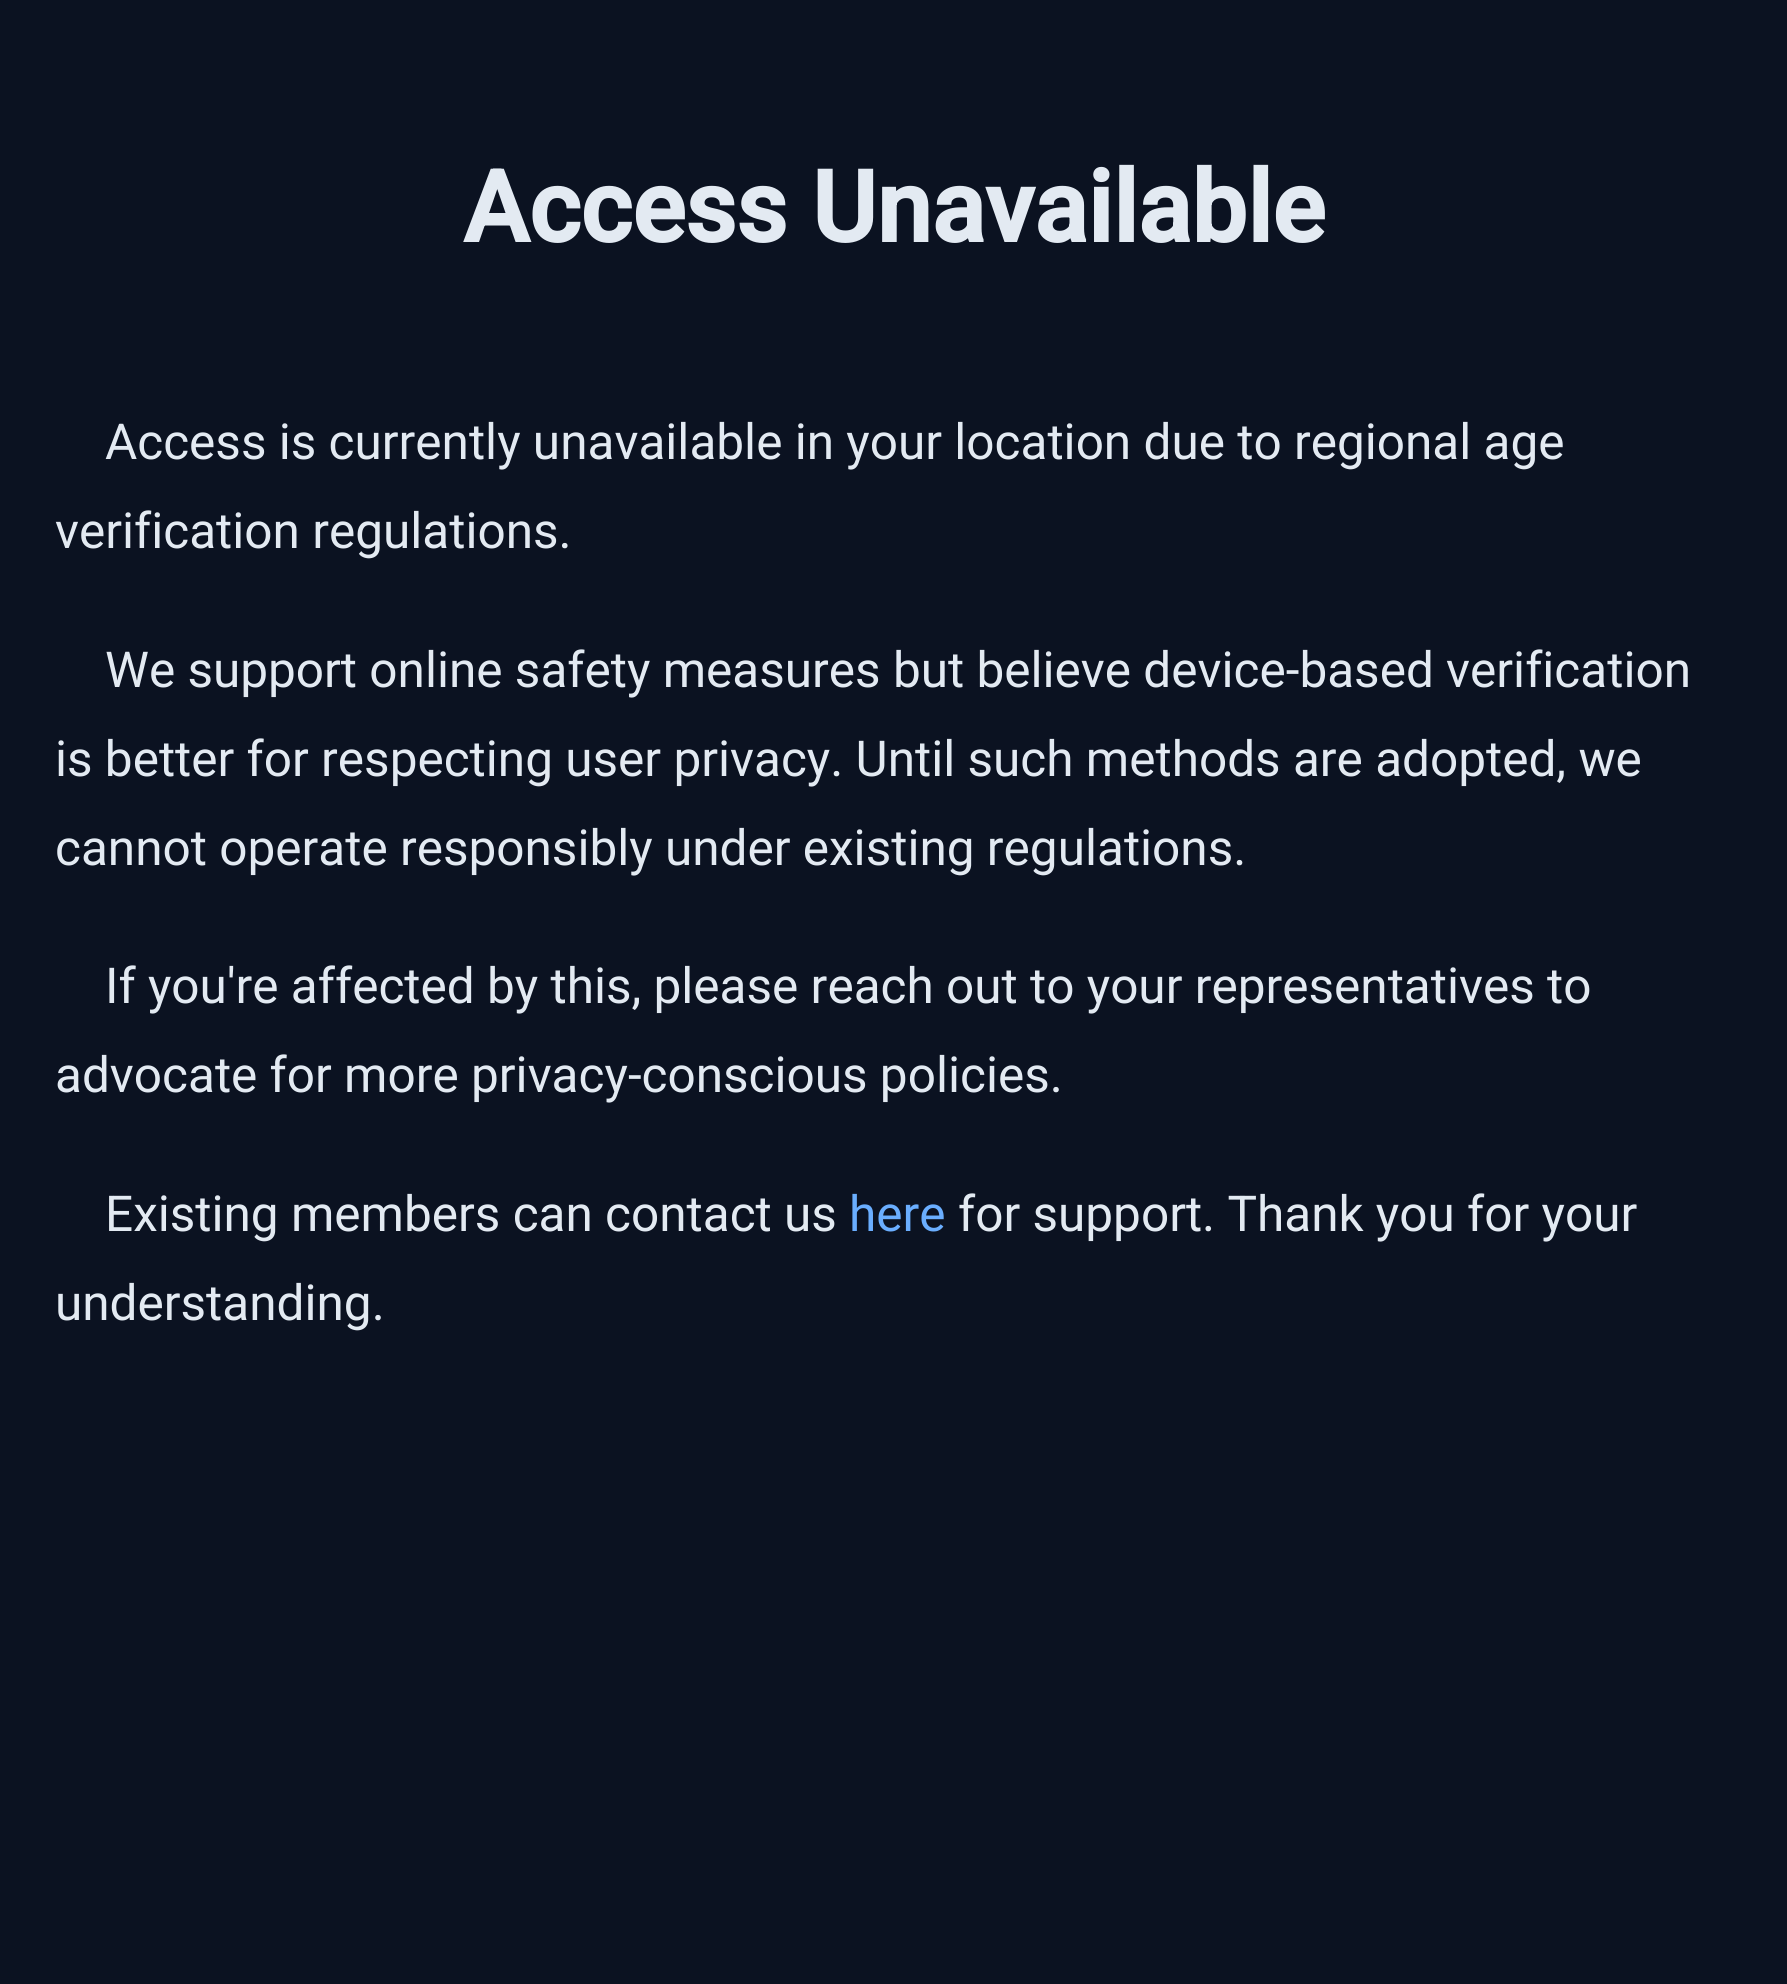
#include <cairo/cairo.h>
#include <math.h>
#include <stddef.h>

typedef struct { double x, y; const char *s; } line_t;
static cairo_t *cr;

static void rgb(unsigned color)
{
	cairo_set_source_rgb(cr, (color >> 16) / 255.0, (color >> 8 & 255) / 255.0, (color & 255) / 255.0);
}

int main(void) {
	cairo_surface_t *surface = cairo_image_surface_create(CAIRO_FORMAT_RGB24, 1787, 1984);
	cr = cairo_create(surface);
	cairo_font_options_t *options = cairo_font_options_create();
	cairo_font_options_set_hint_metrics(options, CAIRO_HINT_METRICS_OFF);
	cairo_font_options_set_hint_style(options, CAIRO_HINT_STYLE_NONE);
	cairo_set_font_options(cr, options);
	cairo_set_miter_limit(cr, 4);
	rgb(0x0b1221);
	cairo_paint(cr);
	cairo_select_font_face(cr, "Roboto", CAIRO_FONT_SLANT_NORMAL, CAIRO_FONT_WEIGHT_BOLD);
	cairo_set_font_size(cr, 99);
	rgb(0xe3eaf2);
	cairo_move_to(cr, 463, 242);
	cairo_show_text(cr, "Access Unavailable");
	cairo_select_font_face(cr, "Roboto", CAIRO_FONT_SLANT_NORMAL, CAIRO_FONT_WEIGHT_NORMAL);
	cairo_set_font_size(cr, 49.5);
	{
		static const line_t items[] = {
			{105, 459, "Access is currently unavailable in your location due to regional age"},
			{55, 548, "verification regulations."},
			{105, 687, "We support online safety measures but believe device-based verification"},
			{55, 776, "is better for respecting user privacy. Until such methods are adopted, we"},
			{55, 865, "cannot operate responsibly under existing regulations."},
			{105, 1003, "If you're affected by this, please reach out to your representatives to"},
			{55, 1092, "advocate for more privacy-conscious policies."},
			{105, 1231, "Existing members can contact us"},
		};
		for (size_t i = 0; i < sizeof items / sizeof *items; i++) {
			cairo_move_to(cr, items[i].x, items[i].y);
			cairo_show_text(cr, items[i].s);
		}
	}
	rgb(0x6aaeff);
	cairo_move_to(cr, 849, 1231);
	cairo_show_text(cr, "here");
	rgb(0xe3eaf2);
	cairo_move_to(cr, 958, 1231);
	cairo_show_text(cr, "for support. Thank you for your");
	cairo_move_to(cr, 55, 1320);
	cairo_show_text(cr, "understanding.");
	cairo_surface_write_to_png(surface, "page.png");
	cairo_font_options_destroy(options);
	cairo_destroy(cr);
	cairo_surface_destroy(surface);
	return 0;
}
